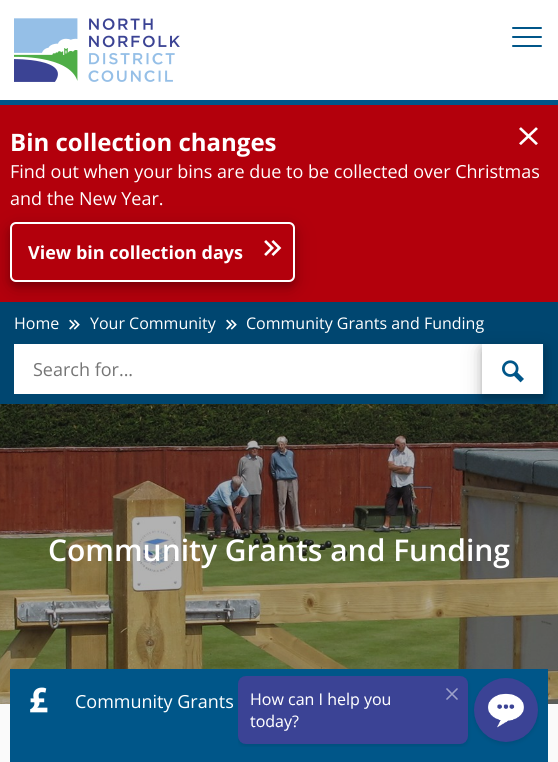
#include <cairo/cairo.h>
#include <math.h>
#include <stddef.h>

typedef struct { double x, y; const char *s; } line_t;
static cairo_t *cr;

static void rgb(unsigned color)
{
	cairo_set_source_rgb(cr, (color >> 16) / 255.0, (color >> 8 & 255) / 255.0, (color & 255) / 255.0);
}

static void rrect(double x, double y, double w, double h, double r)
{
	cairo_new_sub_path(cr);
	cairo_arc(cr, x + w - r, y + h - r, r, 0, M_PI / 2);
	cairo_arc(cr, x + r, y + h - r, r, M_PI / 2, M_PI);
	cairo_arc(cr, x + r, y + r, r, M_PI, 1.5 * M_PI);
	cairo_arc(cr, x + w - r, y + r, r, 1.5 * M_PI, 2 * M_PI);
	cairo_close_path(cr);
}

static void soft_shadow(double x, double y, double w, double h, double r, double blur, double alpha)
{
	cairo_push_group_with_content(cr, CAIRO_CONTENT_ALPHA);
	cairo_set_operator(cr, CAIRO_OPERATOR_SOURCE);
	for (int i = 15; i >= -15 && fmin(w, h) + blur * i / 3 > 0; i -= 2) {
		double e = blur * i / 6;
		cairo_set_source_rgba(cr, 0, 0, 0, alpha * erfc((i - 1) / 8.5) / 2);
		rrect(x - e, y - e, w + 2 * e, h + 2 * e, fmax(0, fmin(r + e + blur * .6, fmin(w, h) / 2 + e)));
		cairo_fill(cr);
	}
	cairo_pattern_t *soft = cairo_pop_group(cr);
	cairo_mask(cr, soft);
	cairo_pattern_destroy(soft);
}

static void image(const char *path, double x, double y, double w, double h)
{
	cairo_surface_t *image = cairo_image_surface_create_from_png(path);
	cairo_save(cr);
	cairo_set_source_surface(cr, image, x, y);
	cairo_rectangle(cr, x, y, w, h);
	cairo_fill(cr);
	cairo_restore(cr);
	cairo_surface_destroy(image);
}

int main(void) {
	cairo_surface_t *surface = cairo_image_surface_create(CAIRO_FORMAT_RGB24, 558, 762);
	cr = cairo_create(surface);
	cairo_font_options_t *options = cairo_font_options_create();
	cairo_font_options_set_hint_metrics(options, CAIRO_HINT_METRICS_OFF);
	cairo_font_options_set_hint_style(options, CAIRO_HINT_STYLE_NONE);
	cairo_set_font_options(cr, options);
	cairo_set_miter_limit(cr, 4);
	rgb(0xffffff);
	cairo_paint(cr);
	rgb(0x005689);
	cairo_rectangle(cr, 0, 100, 558, 5);
	cairo_fill(cr);
	image("img/1.png", 14, 18, 166, 64);
	rrect(512, 36, 30, 2, 1);
	cairo_fill(cr);
	rrect(512, 27, 30, 2, 1);
	cairo_fill(cr);
	rrect(512, 45, 30, 2, 1);
	cairo_fill(cr);
	rgb(0xfafafa);
	cairo_rectangle(cr, 0, 704, 558, 58);
	cairo_fill(cr);
	rgb(0xb3000c);
	cairo_rectangle(cr, 0, 105, 558, 197);
	cairo_fill(cr);
	image("img/2.png", 519, 127, 19, 18);
	rgb(0x004670);
	cairo_rectangle(cr, 0, 302, 558, 102);
	cairo_fill(cr);
	cairo_save(cr);
	cairo_set_fill_rule(cr, CAIRO_FILL_RULE_EVEN_ODD);
	cairo_new_path(cr);
	cairo_move_to(cr, 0, 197);
	cairo_line_to(cr, 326, 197);
	cairo_line_to(cr, 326, 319);
	cairo_line_to(cr, 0, 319);
	cairo_close_path(cr);
	cairo_move_to(cr, 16, 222);
	cairo_line_to(cr, 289, 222);
	cairo_curve_to(cr, 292.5, 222, 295, 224.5, 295, 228);
	cairo_line_to(cr, 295, 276);
	cairo_curve_to(cr, 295, 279.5, 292.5, 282, 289, 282);
	cairo_line_to(cr, 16, 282);
	cairo_curve_to(cr, 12.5, 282, 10, 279.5, 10, 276);
	cairo_line_to(cr, 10, 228);
	cairo_curve_to(cr, 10, 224.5, 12.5, 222, 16, 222);
	cairo_close_path(cr);
	cairo_clip(cr);
	rgb(0x000000);
	soft_shadow(10, 228, 285, 60, 6, 10, 0.19);
	cairo_restore(cr);
	cairo_save(cr);
	cairo_set_fill_rule(cr, CAIRO_FILL_RULE_EVEN_ODD);
	cairo_new_path(cr);
	cairo_move_to(cr, 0, 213);
	cairo_line_to(cr, 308, 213);
	cairo_line_to(cr, 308, 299);
	cairo_line_to(cr, 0, 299);
	cairo_close_path(cr);
	cairo_move_to(cr, 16, 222);
	cairo_line_to(cr, 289, 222);
	cairo_curve_to(cr, 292.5, 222, 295, 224.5, 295, 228);
	cairo_line_to(cr, 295, 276);
	cairo_curve_to(cr, 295, 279.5, 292.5, 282, 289, 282);
	cairo_line_to(cr, 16, 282);
	cairo_curve_to(cr, 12.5, 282, 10, 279.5, 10, 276);
	cairo_line_to(cr, 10, 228);
	cairo_curve_to(cr, 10, 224.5, 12.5, 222, 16, 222);
	cairo_close_path(cr);
	cairo_clip(cr);
	rgb(0x000000);
	soft_shadow(10, 226, 285, 60, 6, 4, 0.2);
	cairo_restore(cr);
	rrect(11, 223, 283, 58, 5);
	rgb(0xffffff);
	cairo_stroke(cr);
	image("img/3.png", 264, 240, 18, 16);
	image("img/4.png", 69, 319, 11, 11);
	image("img/4.png", 226, 319, 11, 11);
	cairo_rectangle(cr, 14, 344, 529, 50);
	cairo_fill(cr);
	cairo_save(cr);
	cairo_set_fill_rule(cr, CAIRO_FILL_RULE_EVEN_ODD);
	cairo_new_path(cr);
	cairo_move_to(cr, 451, 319);
	cairo_line_to(cr, 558, 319);
	cairo_line_to(cr, 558, 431);
	cairo_line_to(cr, 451, 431);
	cairo_close_path(cr);
	cairo_move_to(cr, 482, 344);
	cairo_line_to(cr, 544, 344);
	cairo_line_to(cr, 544, 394);
	cairo_line_to(cr, 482, 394);
	cairo_close_path(cr);
	cairo_clip(cr);
	rgb(0x000000);
	soft_shadow(482, 350, 62, 50, 0, 10, 0.19);
	cairo_restore(cr);
	cairo_save(cr);
	cairo_set_fill_rule(cr, CAIRO_FILL_RULE_EVEN_ODD);
	cairo_new_path(cr);
	cairo_move_to(cr, 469, 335);
	cairo_line_to(cr, 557, 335);
	cairo_line_to(cr, 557, 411);
	cairo_line_to(cr, 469, 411);
	cairo_close_path(cr);
	cairo_move_to(cr, 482, 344);
	cairo_line_to(cr, 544, 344);
	cairo_line_to(cr, 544, 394);
	cairo_line_to(cr, 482, 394);
	cairo_close_path(cr);
	cairo_clip(cr);
	rgb(0x000000);
	soft_shadow(482, 348, 62, 50, 0, 4, 0.2);
	cairo_restore(cr);
	image("img/5.png", 502, 360, 22, 23);
	image("img/6.png", 0, 404, 558, 300);
	rgb(0x005689);
	cairo_rectangle(cr, 10, 669, 538, 93);
	cairo_fill(cr);
	image("img/7.png", 30, 687, 18, 26);
	image("img/8.png", 238, 676, 301, 71);
	cairo_select_font_face(cr, "Open Sans", CAIRO_FONT_SLANT_NORMAL, CAIRO_FONT_WEIGHT_BOLD);
	cairo_set_font_size(cr, 24);
	rgb(0xffffff);
	cairo_move_to(cr, 10, 151);
	cairo_show_text(cr, "Bin collection changes");
	cairo_select_font_face(cr, "Open Sans", CAIRO_FONT_SLANT_NORMAL, CAIRO_FONT_WEIGHT_NORMAL);
	cairo_set_font_size(cr, 18);
	cairo_move_to(cr, 10, 178);
	cairo_show_text(cr, "Find out when your bins are due to be collected over Christmas");
	cairo_move_to(cr, 10, 205);
	cairo_show_text(cr, "and the New Year.");
	cairo_select_font_face(cr, "Open Sans", CAIRO_FONT_SLANT_NORMAL, CAIRO_FONT_WEIGHT_BOLD);
	cairo_move_to(cr, 28, 259);
	cairo_show_text(cr, "View bin collection days");
	cairo_select_font_face(cr, "Open Sans", CAIRO_FONT_SLANT_NORMAL, CAIRO_FONT_WEIGHT_NORMAL);
	cairo_set_font_size(cr, 16);
	{
		static const line_t items[] = {
			{14, 329, "Home"},
			{90, 329, "Your Community"},
			{246, 329, "Community Grants and Funding"},
		};
		for (size_t i = 0; i < sizeof items / sizeof *items; i++) {
			cairo_move_to(cr, items[i].x, items[i].y);
			cairo_show_text(cr, items[i].s);
		}
	}
	cairo_set_font_size(cr, 18);
	rgb(0x757575);
	cairo_move_to(cr, 33, 376);
	cairo_show_text(cr, "Search for...");
	cairo_select_font_face(cr, "Open Sans SemiBold", CAIRO_FONT_SLANT_NORMAL, CAIRO_FONT_WEIGHT_NORMAL);
	cairo_set_font_size(cr, 30);
	rgb(0xffffff);
	cairo_move_to(cr, 48, 561);
	cairo_show_text(cr, "Community Grants and Funding");
	cairo_select_font_face(cr, "Open Sans", CAIRO_FONT_SLANT_NORMAL, CAIRO_FONT_WEIGHT_NORMAL);
	cairo_set_font_size(cr, 18);
	cairo_move_to(cr, 75, 708);
	cairo_show_text(cr, "Community Grants");
	cairo_surface_write_to_png(surface, "page.png");
	cairo_font_options_destroy(options);
	cairo_destroy(cr);
	cairo_surface_destroy(surface);
	return 0;
}
